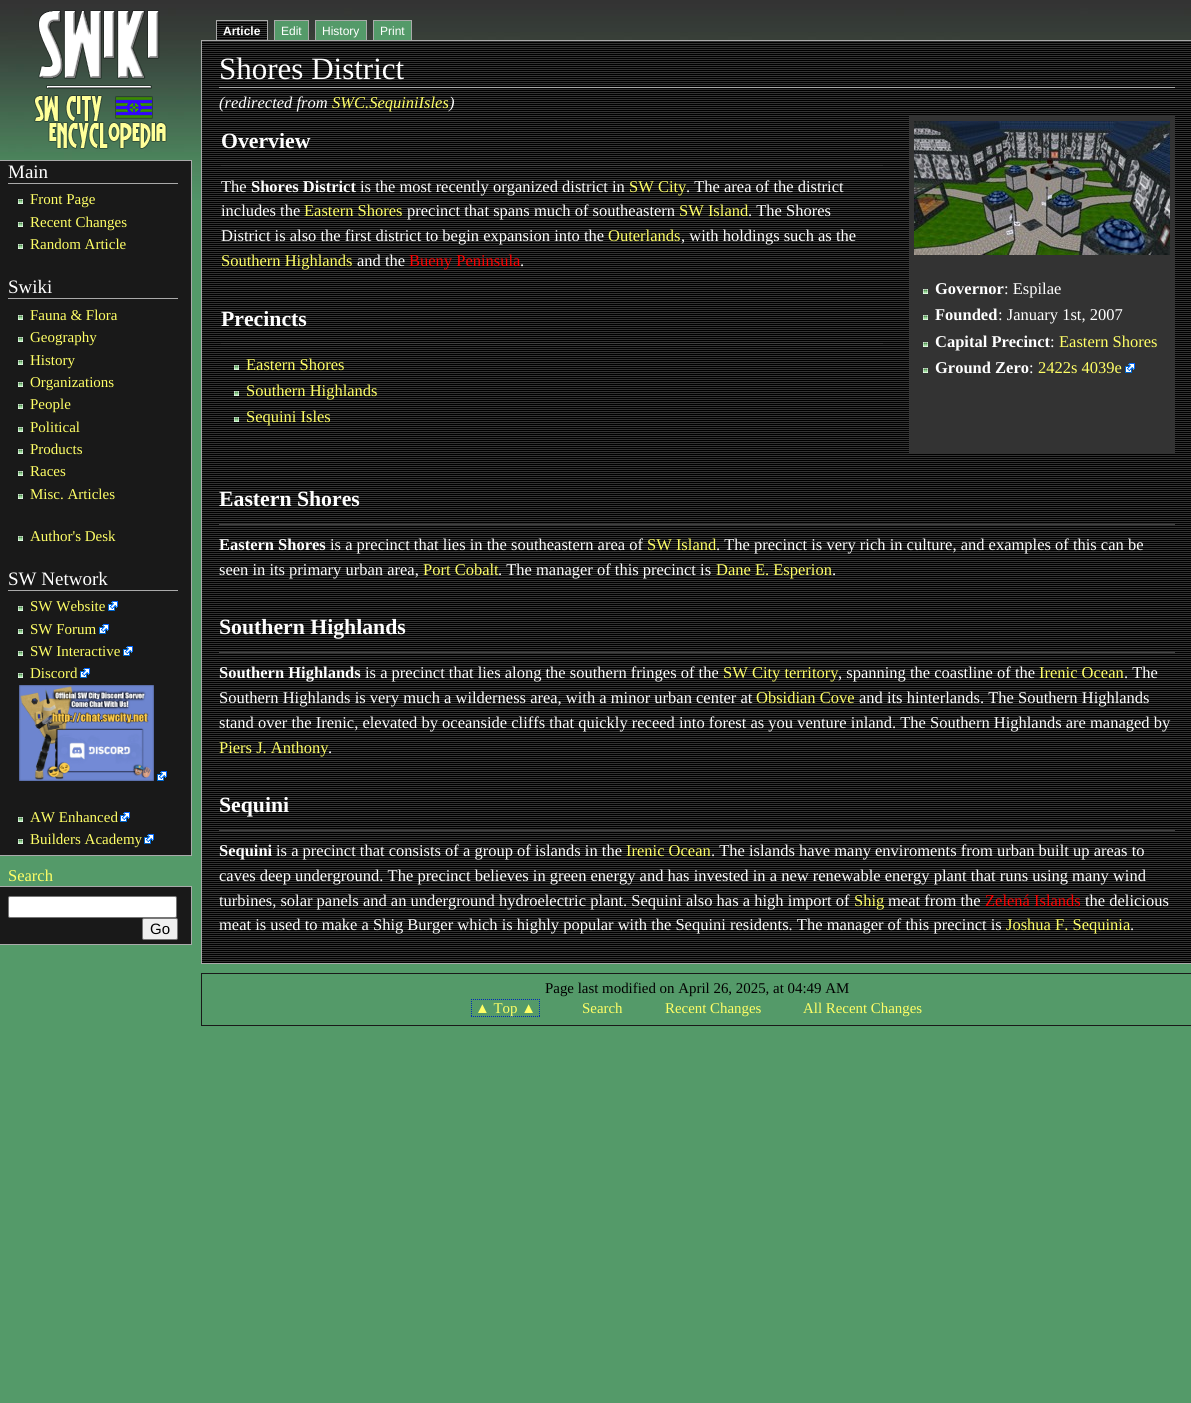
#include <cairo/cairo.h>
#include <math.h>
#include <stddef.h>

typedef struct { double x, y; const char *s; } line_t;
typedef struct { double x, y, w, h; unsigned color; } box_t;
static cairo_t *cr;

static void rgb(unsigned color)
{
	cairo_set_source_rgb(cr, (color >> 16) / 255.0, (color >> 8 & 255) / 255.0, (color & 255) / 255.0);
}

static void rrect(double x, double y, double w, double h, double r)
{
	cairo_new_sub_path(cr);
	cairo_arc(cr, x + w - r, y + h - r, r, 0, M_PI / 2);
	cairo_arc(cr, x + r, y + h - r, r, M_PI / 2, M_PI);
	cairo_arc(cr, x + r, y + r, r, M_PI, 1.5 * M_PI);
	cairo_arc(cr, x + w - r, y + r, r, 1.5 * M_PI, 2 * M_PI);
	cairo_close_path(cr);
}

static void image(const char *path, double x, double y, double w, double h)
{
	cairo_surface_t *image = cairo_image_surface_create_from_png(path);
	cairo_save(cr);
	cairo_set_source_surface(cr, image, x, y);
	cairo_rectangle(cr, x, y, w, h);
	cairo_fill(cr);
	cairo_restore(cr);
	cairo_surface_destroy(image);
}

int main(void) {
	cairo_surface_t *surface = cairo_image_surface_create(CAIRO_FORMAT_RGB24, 1191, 1403);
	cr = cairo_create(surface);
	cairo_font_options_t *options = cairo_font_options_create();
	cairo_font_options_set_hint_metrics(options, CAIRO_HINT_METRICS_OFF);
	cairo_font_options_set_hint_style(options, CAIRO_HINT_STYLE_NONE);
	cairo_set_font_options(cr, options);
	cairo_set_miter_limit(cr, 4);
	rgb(0x549a69);
	cairo_paint(cr);
	image("img/1.png", 0, 0, 1191, 200);
	image("img/2.png", 34, 10, 133, 139);
	{
		static const box_t items[] = {
			{0, 161, 191, 694, 0x191919},
			{0, 160, 192, 1, 0xaaaaaa},
			{191, 160, 1, 696, 0xaaaaaa},
			{0, 855, 192, 1, 0xaaaaaa},
			{8, 183, 170, 1, 0xaaaaaa},
		};
		for (size_t i = 0; i < sizeof items / sizeof *items; i++) {
			rgb(items[i].color);
			cairo_rectangle(cr, items[i].x, items[i].y, items[i].w, items[i].h);
			cairo_fill(cr);
		}
	}
	image("img/3.png", 18, 199, 5, 5);
	image("img/3.png", 18, 222, 5, 5);
	image("img/3.png", 18, 244, 5, 5);
	cairo_rectangle(cr, 8, 298, 170, 1);
	cairo_fill(cr);
	image("img/3.png", 18, 315, 5, 5);
	image("img/3.png", 18, 337, 5, 5);
	image("img/3.png", 18, 360, 5, 5);
	image("img/3.png", 18, 382, 5, 5);
	image("img/3.png", 18, 404, 5, 5);
	image("img/3.png", 18, 427, 5, 5);
	image("img/3.png", 18, 449, 5, 5);
	image("img/3.png", 18, 471, 5, 5);
	image("img/3.png", 18, 494, 5, 5);
	image("img/3.png", 18, 536, 5, 5);
	cairo_rectangle(cr, 8, 590, 170, 1);
	cairo_fill(cr);
	image("img/3.png", 18, 606, 5, 5);
	image("img/4.png", 108, 601, 10, 10);
	image("img/3.png", 18, 629, 5, 5);
	image("img/4.png", 99, 624, 10, 10);
	image("img/3.png", 18, 651, 5, 5);
	image("img/4.png", 123, 646, 10, 10);
	image("img/3.png", 18, 673, 5, 5);
	image("img/4.png", 80, 668, 10, 10);
	image("img/5.png", 19, 685, 135, 96);
	image("img/4.png", 157, 771, 10, 10);
	image("img/3.png", 18, 817, 5, 5);
	image("img/4.png", 120, 812, 10, 10);
	image("img/3.png", 18, 839, 5, 5);
	image("img/4.png", 144, 834, 10, 10);
	{
		static const box_t items[] = {
			{0, 887, 191, 57, 0x191919},
			{0, 886, 192, 1, 0xaaaaaa},
			{191, 886, 1, 59, 0xaaaaaa},
			{0, 944, 192, 1, 0xaaaaaa},
		};
		for (size_t i = 0; i < sizeof items / sizeof *items; i++) {
			rgb(items[i].color);
			cairo_rectangle(cr, items[i].x, items[i].y, items[i].w, items[i].h);
			cairo_fill(cr);
		}
	}
	rgb(0xffffff);
	rrect(8.5, 896.5, 168, 21, 1.5);
	cairo_fill_preserve(cr);
	rgb(0x767676);
	cairo_set_line_width(cr, 1);
	cairo_stroke(cr);
	rgb(0xefefef);
	rrect(142.5, 918.5, 35, 21, 1.5);
	cairo_fill_preserve(cr);
	rgb(0x767676);
	cairo_stroke(cr);
	rgb(0xaaaaaa);
	cairo_rectangle(cr, 201, 40, 990, 1);
	cairo_fill(cr);
	image("img/6.png", 217, 21, 50, 19);
	{
		static const box_t items[] = {
			{216, 20, 52, 1, 0xaaaaaa},
			{267, 20, 1, 20, 0xaaaaaa},
			{216, 20, 1, 20, 0xaaaaaa},
			{275, 21, 33, 19, 0x549a69},
			{274, 20, 35, 1, 0xaaaaaa},
			{308, 20, 1, 20, 0xaaaaaa},
			{274, 20, 1, 20, 0xaaaaaa},
			{316, 21, 50, 19, 0x549a69},
			{315, 20, 52, 1, 0xaaaaaa},
			{366, 20, 1, 20, 0xaaaaaa},
			{315, 20, 1, 20, 0xaaaaaa},
			{374, 21, 37, 19, 0x549a69},
			{373, 20, 39, 1, 0xaaaaaa},
			{411, 20, 1, 20, 0xaaaaaa},
			{373, 20, 1, 20, 0xaaaaaa},
		};
		for (size_t i = 0; i < sizeof items / sizeof *items; i++) {
			rgb(items[i].color);
			cairo_rectangle(cr, items[i].x, items[i].y, items[i].w, items[i].h);
			cairo_fill(cr);
		}
	}
	image("img/7.png", 202, 41, 989, 922);
	{
		static const box_t items[] = {
			{201, 963, 990, 1, 0xaaaaaa},
			{201, 41, 1, 923, 0xaaaaaa},
			{219, 87, 956, 1, 0xaaaaaa},
			{221, 165, 662, 1, 0x404040},
			{221, 343, 662, 1, 0x404040},
		};
		for (size_t i = 0; i < sizeof items / sizeof *items; i++) {
			rgb(items[i].color);
			cairo_rectangle(cr, items[i].x, items[i].y, items[i].w, items[i].h);
			cairo_fill(cr);
		}
	}
	image("img/3.png", 234, 365, 5, 5);
	image("img/3.png", 234, 391, 5, 5);
	image("img/3.png", 234, 417, 5, 5);
	rgb(0x333333);
	cairo_rectangle(cr, 909, 116, 266, 337);
	cairo_fill(cr);
	image("img/8.png", 914, 121, 256, 134);
	image("img/3.png", 923, 289, 5, 5);
	image("img/3.png", 923, 315, 5, 5);
	image("img/3.png", 923, 342, 5, 5);
	image("img/3.png", 923, 368, 5, 5);
	image("img/9.png", 1125, 363, 10, 10);
	{
		static const box_t items[] = {
			{219, 524, 956, 1, 0x404040},
			{219, 652, 956, 1, 0x404040},
			{219, 830, 956, 1, 0x404040},
			{201, 973, 990, 1, 0x191919},
			{201, 1025, 990, 1, 0x191919},
			{201, 973, 1, 53, 0x191919},
		};
		for (size_t i = 0; i < sizeof items / sizeof *items; i++) {
			rgb(items[i].color);
			cairo_rectangle(cr, items[i].x, items[i].y, items[i].w, items[i].h);
			cairo_fill(cr);
		}
	}
	cairo_new_path(cr);
	cairo_move_to(cr, 471, 999.5);
	cairo_line_to(cr, 540, 999.5);
	rgb(0x002bb8);
	cairo_set_dash(cr, (double[]){1, 1}, 2, 0);
	cairo_stroke(cr);
	cairo_new_path(cr);
	cairo_move_to(cr, 539.5, 999);
	cairo_line_to(cr, 539.5, 1017);
	cairo_stroke(cr);
	cairo_new_path(cr);
	cairo_move_to(cr, 471, 1016.5);
	cairo_line_to(cr, 540, 1016.5);
	cairo_stroke(cr);
	cairo_new_path(cr);
	cairo_move_to(cr, 471.5, 999);
	cairo_line_to(cr, 471.5, 1017);
	cairo_stroke(cr);
	cairo_select_font_face(cr, "Liberation Serif", CAIRO_FONT_SLANT_NORMAL, CAIRO_FONT_WEIGHT_NORMAL);
	cairo_set_font_size(cr, 19);
	rgb(0xffffff);
	cairo_move_to(cr, 8, 178);
	cairo_show_text(cr, "Main");
	cairo_set_font_size(cr, 15);
	rgb(0xffff66);
	{
		static const line_t items[] = {
			{30, 204, "Front Page"},
			{30, 227, "Recent Changes"},
			{30, 249, "Random Article"},
		};
		for (size_t i = 0; i < sizeof items / sizeof *items; i++) {
			cairo_move_to(cr, items[i].x, items[i].y);
			cairo_show_text(cr, items[i].s);
		}
	}
	cairo_set_font_size(cr, 19);
	rgb(0xffffff);
	cairo_move_to(cr, 8, 293);
	cairo_show_text(cr, "Swiki");
	cairo_set_font_size(cr, 15);
	rgb(0xffff66);
	{
		static const line_t items[] = {
			{30, 320, "Fauna & Flora"},
			{30, 342, "Geography"},
			{30, 365, "History"},
			{30, 387, "Organizations"},
			{30, 409, "People"},
			{30, 432, "Political"},
			{30, 454, "Products"},
			{30, 476, "Races"},
			{30, 499, "Misc. Articles"},
			{30, 541, "Author's Desk"},
		};
		for (size_t i = 0; i < sizeof items / sizeof *items; i++) {
			cairo_move_to(cr, items[i].x, items[i].y);
			cairo_show_text(cr, items[i].s);
		}
	}
	cairo_set_font_size(cr, 19);
	rgb(0xffffff);
	cairo_move_to(cr, 8, 585);
	cairo_show_text(cr, "SW Network");
	cairo_set_font_size(cr, 15);
	rgb(0xffff66);
	{
		static const line_t items[] = {
			{30, 611, "SW Website"},
			{30, 634, "SW Forum"},
			{30, 656, "SW Interactive"},
			{30, 678, "Discord"},
			{30, 822, "AW Enhanced"},
			{30, 844, "Builders Academy"},
		};
		for (size_t i = 0; i < sizeof items / sizeof *items; i++) {
			cairo_move_to(cr, items[i].x, items[i].y);
			cairo_show_text(cr, items[i].s);
		}
	}
	cairo_set_font_size(cr, 16.5);
	cairo_move_to(cr, 8, 881);
	cairo_show_text(cr, "Search");
	cairo_select_font_face(cr, "Liberation Sans", CAIRO_FONT_SLANT_NORMAL, CAIRO_FONT_WEIGHT_NORMAL);
	cairo_set_font_size(cr, 15);
	rgb(0x000000);
	cairo_move_to(cr, 150, 934);
	cairo_show_text(cr, "Go");
	cairo_select_font_face(cr, "Liberation Sans", CAIRO_FONT_SLANT_NORMAL, CAIRO_FONT_WEIGHT_BOLD);
	cairo_set_font_size(cr, 12);
	rgb(0xffffff);
	cairo_move_to(cr, 223, 35);
	cairo_show_text(cr, "Article");
	cairo_select_font_face(cr, "Liberation Sans", CAIRO_FONT_SLANT_NORMAL, CAIRO_FONT_WEIGHT_NORMAL);
	{
		static const line_t items[] = {
			{281, 35, "Edit"},
			{322, 35, "History"},
			{380, 35, "Print"},
		};
		for (size_t i = 0; i < sizeof items / sizeof *items; i++) {
			cairo_move_to(cr, items[i].x, items[i].y);
			cairo_show_text(cr, items[i].s);
		}
	}
	cairo_select_font_face(cr, "Liberation Serif", CAIRO_FONT_SLANT_NORMAL, CAIRO_FONT_WEIGHT_NORMAL);
	cairo_set_font_size(cr, 31);
	cairo_move_to(cr, 219, 79);
	cairo_show_text(cr, "Shores District");
	cairo_select_font_face(cr, "Liberation Serif", CAIRO_FONT_SLANT_ITALIC, CAIRO_FONT_WEIGHT_NORMAL);
	cairo_set_font_size(cr, 16.5);
	cairo_move_to(cr, 219, 108);
	cairo_show_text(cr, "(redirected from");
	rgb(0xffff66);
	cairo_move_to(cr, 332, 108);
	cairo_show_text(cr, "SWC.SequiniIsles");
	rgb(0xffffff);
	cairo_move_to(cr, 449, 108);
	cairo_show_text(cr, ")");
	cairo_select_font_face(cr, "Liberation Serif", CAIRO_FONT_SLANT_NORMAL, CAIRO_FONT_WEIGHT_BOLD);
	cairo_set_font_size(cr, 21.75);
	cairo_move_to(cr, 221, 148);
	cairo_show_text(cr, "Overview");
	cairo_select_font_face(cr, "Liberation Serif", CAIRO_FONT_SLANT_NORMAL, CAIRO_FONT_WEIGHT_NORMAL);
	cairo_set_font_size(cr, 16.5);
	cairo_move_to(cr, 221, 192);
	cairo_show_text(cr, "The");
	cairo_select_font_face(cr, "Liberation Serif", CAIRO_FONT_SLANT_NORMAL, CAIRO_FONT_WEIGHT_BOLD);
	cairo_move_to(cr, 251, 192);
	cairo_show_text(cr, "Shores District");
	cairo_select_font_face(cr, "Liberation Serif", CAIRO_FONT_SLANT_NORMAL, CAIRO_FONT_WEIGHT_NORMAL);
	cairo_move_to(cr, 360, 192);
	cairo_show_text(cr, "is the most recently organized district in");
	rgb(0xffff66);
	cairo_move_to(cr, 629, 192);
	cairo_show_text(cr, "SW City");
	rgb(0xffffff);
	cairo_move_to(cr, 686, 192);
	cairo_show_text(cr, ". The area of the district");
	cairo_move_to(cr, 221, 216);
	cairo_show_text(cr, "includes the");
	rgb(0xffff66);
	cairo_move_to(cr, 304, 216);
	cairo_show_text(cr, "Eastern Shores");
	rgb(0xffffff);
	cairo_move_to(cr, 407, 216);
	cairo_show_text(cr, "precinct that spans much of southeastern");
	rgb(0xffff66);
	cairo_move_to(cr, 679, 216);
	cairo_show_text(cr, "SW Island");
	rgb(0xffffff);
	cairo_move_to(cr, 748, 216);
	cairo_show_text(cr, ". The Shores");
	cairo_move_to(cr, 221, 241);
	cairo_show_text(cr, "District is also the first district to begin expansion into the");
	rgb(0xffff66);
	cairo_move_to(cr, 608, 241);
	cairo_show_text(cr, "Outerlands");
	rgb(0xffffff);
	cairo_move_to(cr, 681, 241);
	cairo_show_text(cr, ", with holdings such as the");
	rgb(0xffff66);
	cairo_move_to(cr, 221, 266);
	cairo_show_text(cr, "Southern Highlands");
	rgb(0xffffff);
	cairo_move_to(cr, 357, 266);
	cairo_show_text(cr, "and the");
	rgb(0xff0000);
	cairo_move_to(cr, 409, 266);
	cairo_show_text(cr, "Bueny Peninsula");
	rgb(0xffffff);
	cairo_move_to(cr, 520, 266);
	cairo_show_text(cr, ".");
	cairo_select_font_face(cr, "Liberation Serif", CAIRO_FONT_SLANT_NORMAL, CAIRO_FONT_WEIGHT_BOLD);
	cairo_set_font_size(cr, 21.75);
	cairo_move_to(cr, 221, 326);
	cairo_show_text(cr, "Precincts");
	cairo_select_font_face(cr, "Liberation Serif", CAIRO_FONT_SLANT_NORMAL, CAIRO_FONT_WEIGHT_NORMAL);
	cairo_set_font_size(cr, 16.5);
	rgb(0xffff66);
	{
		static const line_t items[] = {
			{246, 370, "Eastern Shores"},
			{246, 396, "Southern Highlands"},
			{246, 422, "Sequini Isles"},
		};
		for (size_t i = 0; i < sizeof items / sizeof *items; i++) {
			cairo_move_to(cr, items[i].x, items[i].y);
			cairo_show_text(cr, items[i].s);
		}
	}
	cairo_select_font_face(cr, "Liberation Serif", CAIRO_FONT_SLANT_NORMAL, CAIRO_FONT_WEIGHT_BOLD);
	rgb(0xffffff);
	cairo_move_to(cr, 935, 294);
	cairo_show_text(cr, "Governor");
	cairo_select_font_face(cr, "Liberation Serif", CAIRO_FONT_SLANT_NORMAL, CAIRO_FONT_WEIGHT_NORMAL);
	cairo_move_to(cr, 1004, 294);
	cairo_show_text(cr, ": Espilae");
	cairo_select_font_face(cr, "Liberation Serif", CAIRO_FONT_SLANT_NORMAL, CAIRO_FONT_WEIGHT_BOLD);
	cairo_move_to(cr, 935, 320);
	cairo_show_text(cr, "Founded");
	cairo_select_font_face(cr, "Liberation Serif", CAIRO_FONT_SLANT_NORMAL, CAIRO_FONT_WEIGHT_NORMAL);
	cairo_move_to(cr, 998, 320);
	cairo_show_text(cr, ": January 1st, 2007");
	cairo_select_font_face(cr, "Liberation Serif", CAIRO_FONT_SLANT_NORMAL, CAIRO_FONT_WEIGHT_BOLD);
	cairo_move_to(cr, 935, 347);
	cairo_show_text(cr, "Capital Precinct");
	cairo_select_font_face(cr, "Liberation Serif", CAIRO_FONT_SLANT_NORMAL, CAIRO_FONT_WEIGHT_NORMAL);
	cairo_move_to(cr, 1050, 347);
	cairo_show_text(cr, ":");
	rgb(0xffff66);
	cairo_move_to(cr, 1059, 347);
	cairo_show_text(cr, "Eastern Shores");
	cairo_select_font_face(cr, "Liberation Serif", CAIRO_FONT_SLANT_NORMAL, CAIRO_FONT_WEIGHT_BOLD);
	rgb(0xffffff);
	cairo_move_to(cr, 935, 373);
	cairo_show_text(cr, "Ground Zero");
	cairo_select_font_face(cr, "Liberation Serif", CAIRO_FONT_SLANT_NORMAL, CAIRO_FONT_WEIGHT_NORMAL);
	cairo_move_to(cr, 1029, 373);
	cairo_show_text(cr, ":");
	rgb(0xffff66);
	cairo_move_to(cr, 1038, 373);
	cairo_show_text(cr, "2422s 4039e");
	cairo_select_font_face(cr, "Liberation Serif", CAIRO_FONT_SLANT_NORMAL, CAIRO_FONT_WEIGHT_BOLD);
	cairo_set_font_size(cr, 21.75);
	rgb(0xffffff);
	cairo_move_to(cr, 219, 506);
	cairo_show_text(cr, "Eastern Shores");
	cairo_set_font_size(cr, 16.5);
	cairo_move_to(cr, 219, 550);
	cairo_show_text(cr, "Eastern Shores");
	cairo_select_font_face(cr, "Liberation Serif", CAIRO_FONT_SLANT_NORMAL, CAIRO_FONT_WEIGHT_NORMAL);
	cairo_move_to(cr, 330, 550);
	cairo_show_text(cr, "is a precinct that lies in the southeastern area of");
	rgb(0xffff66);
	cairo_move_to(cr, 647, 550);
	cairo_show_text(cr, "SW Island");
	rgb(0xffffff);
	cairo_move_to(cr, 716, 550);
	cairo_show_text(cr, ". The precinct is very rich in culture, and examples of this can be");
	cairo_move_to(cr, 219, 575);
	cairo_show_text(cr, "seen in its primary urban area,");
	rgb(0xffff66);
	cairo_move_to(cr, 423, 575);
	cairo_show_text(cr, "Port Cobalt");
	rgb(0xffffff);
	cairo_move_to(cr, 498, 575);
	cairo_show_text(cr, ". The manager of this precinct is");
	rgb(0xffff66);
	cairo_move_to(cr, 716, 575);
	cairo_show_text(cr, "Dane E. Esperion");
	rgb(0xffffff);
	cairo_move_to(cr, 832, 575);
	cairo_show_text(cr, ".");
	cairo_select_font_face(cr, "Liberation Serif", CAIRO_FONT_SLANT_NORMAL, CAIRO_FONT_WEIGHT_BOLD);
	cairo_set_font_size(cr, 21.75);
	cairo_move_to(cr, 219, 634);
	cairo_show_text(cr, "Southern Highlands");
	cairo_set_font_size(cr, 16.5);
	cairo_move_to(cr, 219, 678);
	cairo_show_text(cr, "Southern Highlands");
	cairo_select_font_face(cr, "Liberation Serif", CAIRO_FONT_SLANT_NORMAL, CAIRO_FONT_WEIGHT_NORMAL);
	cairo_move_to(cr, 365, 678);
	cairo_show_text(cr, "is a precinct that lies along the southern fringes of the");
	rgb(0xffff66);
	cairo_move_to(cr, 723, 678);
	cairo_show_text(cr, "SW City territory");
	rgb(0xffffff);
	cairo_move_to(cr, 838, 678);
	cairo_show_text(cr, ", spanning the coastline of the");
	rgb(0xffff66);
	cairo_move_to(cr, 1039, 678);
	cairo_show_text(cr, "Irenic Ocean");
	rgb(0xffffff);
	cairo_move_to(cr, 1124, 678);
	cairo_show_text(cr, ". The");
	cairo_move_to(cr, 219, 703);
	cairo_show_text(cr, "Southern Highlands is very much a wilderness area, with a minor urban center at");
	rgb(0xffff66);
	cairo_move_to(cr, 756, 703);
	cairo_show_text(cr, "Obsidian Cove");
	rgb(0xffffff);
	cairo_move_to(cr, 859, 703);
	cairo_show_text(cr, "and its hinterlands. The Southern Highlands");
	cairo_move_to(cr, 219, 728);
	cairo_show_text(cr, "stand over the Irenic, elevated by oceanside cliffs that quickly receed into forest as you venture inland. The Southern Highlands are managed by");
	rgb(0xffff66);
	cairo_move_to(cr, 219, 753);
	cairo_show_text(cr, "Piers J. Anthony");
	rgb(0xffffff);
	cairo_move_to(cr, 328, 753);
	cairo_show_text(cr, ".");
	cairo_select_font_face(cr, "Liberation Serif", CAIRO_FONT_SLANT_NORMAL, CAIRO_FONT_WEIGHT_BOLD);
	cairo_set_font_size(cr, 21.75);
	cairo_move_to(cr, 219, 812);
	cairo_show_text(cr, "Sequini");
	cairo_set_font_size(cr, 16.5);
	cairo_move_to(cr, 219, 856);
	cairo_show_text(cr, "Sequini");
	cairo_select_font_face(cr, "Liberation Serif", CAIRO_FONT_SLANT_NORMAL, CAIRO_FONT_WEIGHT_NORMAL);
	cairo_move_to(cr, 276, 856);
	cairo_show_text(cr, "is a precinct that consists of a group of islands in the");
	rgb(0xffff66);
	cairo_move_to(cr, 626, 856);
	cairo_show_text(cr, "Irenic Ocean");
	rgb(0xffffff);
	{
		static const line_t items[] = {
			{711, 856, ". The islands have many enviroments from urban built up areas to"},
			{219, 881, "caves deep underground. The precinct believes in green energy and has invested in a new renewable energy plant that runs using many wind"},
			{219, 906, "turbines, solar panels and an underground hydroelectric plant. Sequini also has a high import of"},
		};
		for (size_t i = 0; i < sizeof items / sizeof *items; i++) {
			cairo_move_to(cr, items[i].x, items[i].y);
			cairo_show_text(cr, items[i].s);
		}
	}
	rgb(0xffff66);
	cairo_move_to(cr, 854, 906);
	cairo_show_text(cr, "Shig");
	rgb(0xffffff);
	cairo_move_to(cr, 888, 906);
	cairo_show_text(cr, "meat from the");
	rgb(0xff0000);
	cairo_move_to(cr, 985, 906);
	cairo_show_text(cr, "Zelená Islands");
	rgb(0xffffff);
	cairo_move_to(cr, 1085, 906);
	cairo_show_text(cr, "the delicious");
	cairo_move_to(cr, 219, 930);
	cairo_show_text(cr, "meat is used to make a Shig Burger which is highly popular with the Sequini residents. The manager of this precinct is");
	rgb(0xffff66);
	cairo_move_to(cr, 1006, 930);
	cairo_show_text(cr, "Joshua F. Sequinia");
	rgb(0xffffff);
	cairo_move_to(cr, 1130, 930);
	cairo_show_text(cr, ".");
	cairo_set_font_size(cr, 14.9);
	rgb(0x000000);
	cairo_move_to(cr, 545, 993);
	cairo_show_text(cr, "Page last modified on April 26, 2025, at 04:49 AM");
	rgb(0xffff66);
	{
		static const line_t items[] = {
			{475, 1013, "▲ Top ▲"},
			{582, 1013, "Search"},
			{665, 1013, "Recent Changes"},
			{803, 1013, "All Recent Changes"},
		};
		for (size_t i = 0; i < sizeof items / sizeof *items; i++) {
			cairo_move_to(cr, items[i].x, items[i].y);
			cairo_show_text(cr, items[i].s);
		}
	}
	cairo_surface_write_to_png(surface, "page.png");
	cairo_font_options_destroy(options);
	cairo_destroy(cr);
	cairo_surface_destroy(surface);
	return 0;
}
